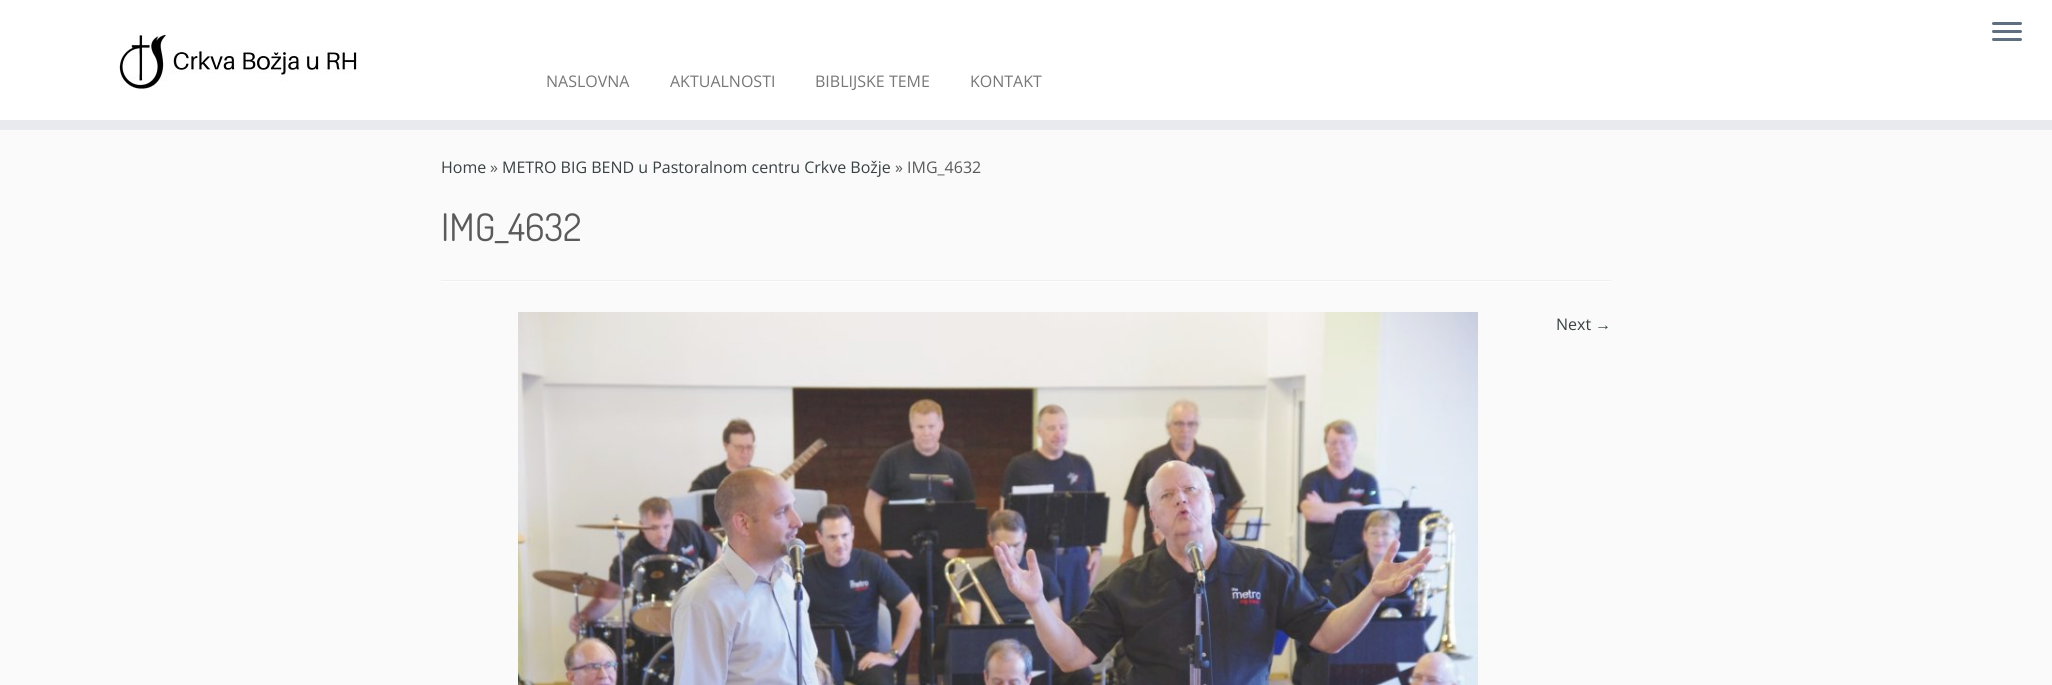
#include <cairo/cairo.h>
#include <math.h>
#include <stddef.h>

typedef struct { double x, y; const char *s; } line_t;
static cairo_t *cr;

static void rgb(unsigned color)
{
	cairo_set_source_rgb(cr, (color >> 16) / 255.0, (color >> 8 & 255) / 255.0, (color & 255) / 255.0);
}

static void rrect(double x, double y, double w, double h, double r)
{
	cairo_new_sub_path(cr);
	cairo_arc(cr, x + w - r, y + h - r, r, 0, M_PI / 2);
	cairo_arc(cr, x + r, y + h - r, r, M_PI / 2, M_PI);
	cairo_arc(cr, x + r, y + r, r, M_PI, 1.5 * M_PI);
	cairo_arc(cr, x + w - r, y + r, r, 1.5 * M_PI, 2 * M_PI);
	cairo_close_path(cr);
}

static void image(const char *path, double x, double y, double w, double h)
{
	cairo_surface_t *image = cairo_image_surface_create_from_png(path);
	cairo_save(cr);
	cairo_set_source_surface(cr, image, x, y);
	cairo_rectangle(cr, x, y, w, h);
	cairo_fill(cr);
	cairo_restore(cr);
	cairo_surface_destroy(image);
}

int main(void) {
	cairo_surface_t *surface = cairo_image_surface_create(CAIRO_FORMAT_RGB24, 2052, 685);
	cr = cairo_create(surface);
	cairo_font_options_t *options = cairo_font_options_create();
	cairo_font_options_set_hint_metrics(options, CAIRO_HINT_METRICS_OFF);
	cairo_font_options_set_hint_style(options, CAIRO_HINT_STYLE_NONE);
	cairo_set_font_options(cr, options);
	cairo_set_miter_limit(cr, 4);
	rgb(0xfafafa);
	cairo_paint(cr);
	rgb(0xffffff);
	cairo_rectangle(cr, 0, 0, 2052, 120);
	cairo_fill(cr);
	rgb(0xe9eaee);
	cairo_rectangle(cr, 0, 120, 2052, 10);
	cairo_fill(cr);
	image("img/1.png", 118, 34, 242, 56);
	rgb(0x5f6f81);
	rrect(1992, 22, 30, 3, 1.5);
	cairo_fill(cr);
	rrect(1992, 30, 30, 3, 1.5);
	cairo_fill(cr);
	rrect(1992, 38, 30, 3, 1.5);
	cairo_fill(cr);
	rgb(0xeeeeee);
	cairo_rectangle(cr, 441, 280, 1170, 1);
	cairo_fill(cr);
	rgb(0xffffff);
	cairo_rectangle(cr, 441, 281, 1170, 1);
	cairo_fill(cr);
	image("img/2.png", 518, 312, 960, 373);
	cairo_select_font_face(cr, "Open Sans", CAIRO_FONT_SLANT_NORMAL, CAIRO_FONT_WEIGHT_NORMAL);
	cairo_set_font_size(cr, 16);
	rgb(0x777777);
	{
		static const line_t items[] = {
			{546, 87, "NASLOVNA"},
			{670, 87, "AKTUALNOSTI"},
			{815, 87, "BIBLIJSKE TEME"},
			{970, 87, "KONTAKT"},
		};
		for (size_t i = 0; i < sizeof items / sizeof *items; i++) {
			cairo_move_to(cr, items[i].x, items[i].y);
			cairo_show_text(cr, items[i].s);
		}
	}
	rgb(0x394143);
	cairo_move_to(cr, 441, 173);
	cairo_show_text(cr, "Home");
	rgb(0x5a5a5a);
	cairo_move_to(cr, 490, 173);
	cairo_show_text(cr, "»");
	rgb(0x394143);
	cairo_move_to(cr, 502, 173);
	cairo_show_text(cr, "METRO BIG BEND u Pastoralnom centru Crkve Božje");
	rgb(0x5a5a5a);
	cairo_move_to(cr, 895, 173);
	cairo_show_text(cr, "» IMG_4632");
	cairo_select_font_face(cr, "Dosis", CAIRO_FONT_SLANT_NORMAL, CAIRO_FONT_WEIGHT_NORMAL);
	cairo_set_font_size(cr, 38);
	cairo_move_to(cr, 441, 241);
	cairo_show_text(cr, "IMG_4632");
	cairo_select_font_face(cr, "Open Sans", CAIRO_FONT_SLANT_NORMAL, CAIRO_FONT_WEIGHT_NORMAL);
	cairo_set_font_size(cr, 16);
	rgb(0x394143);
	cairo_move_to(cr, 1556, 330);
	cairo_show_text(cr, "Next");
	cairo_select_font_face(cr, "Liberation Serif", CAIRO_FONT_SLANT_NORMAL, CAIRO_FONT_WEIGHT_NORMAL);
	cairo_move_to(cr, 1595, 330);
	cairo_show_text(cr, "→");
	cairo_surface_write_to_png(surface, "page.png");
	cairo_font_options_destroy(options);
	cairo_destroy(cr);
	cairo_surface_destroy(surface);
	return 0;
}
